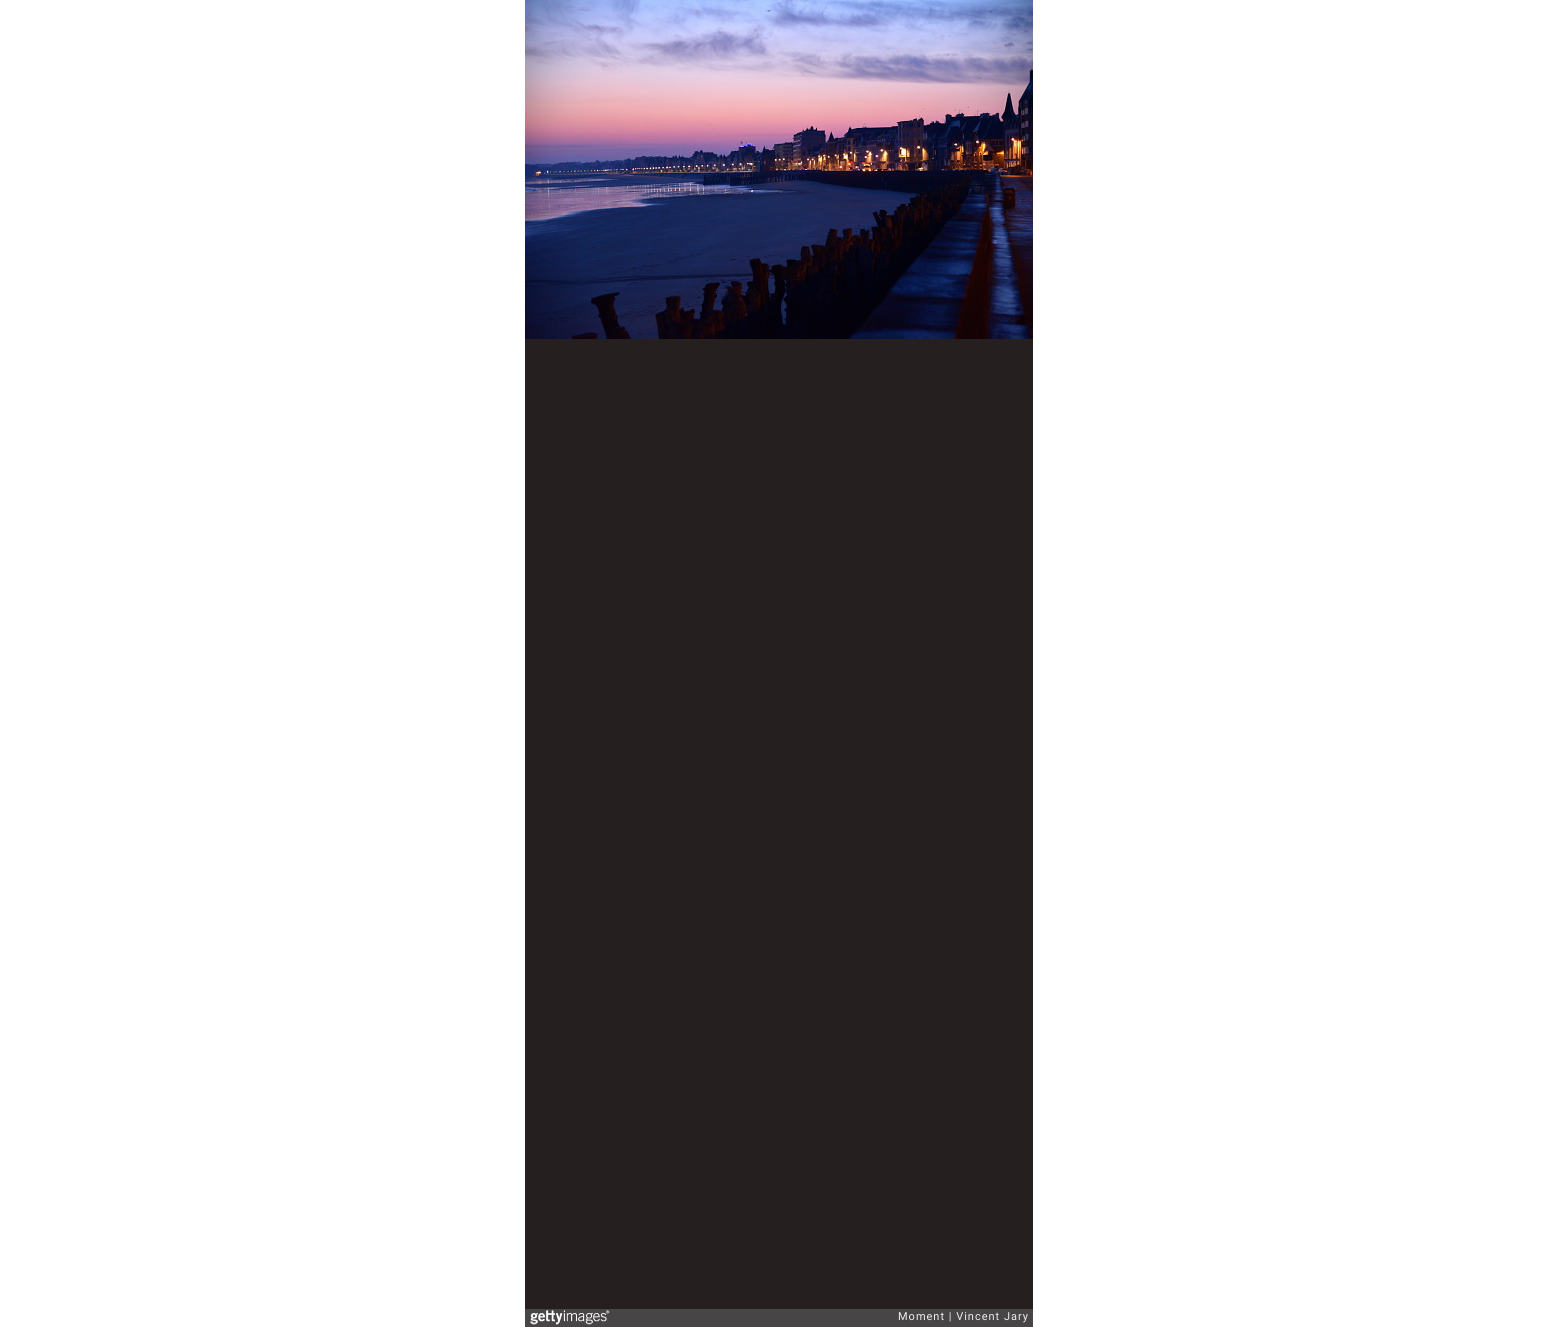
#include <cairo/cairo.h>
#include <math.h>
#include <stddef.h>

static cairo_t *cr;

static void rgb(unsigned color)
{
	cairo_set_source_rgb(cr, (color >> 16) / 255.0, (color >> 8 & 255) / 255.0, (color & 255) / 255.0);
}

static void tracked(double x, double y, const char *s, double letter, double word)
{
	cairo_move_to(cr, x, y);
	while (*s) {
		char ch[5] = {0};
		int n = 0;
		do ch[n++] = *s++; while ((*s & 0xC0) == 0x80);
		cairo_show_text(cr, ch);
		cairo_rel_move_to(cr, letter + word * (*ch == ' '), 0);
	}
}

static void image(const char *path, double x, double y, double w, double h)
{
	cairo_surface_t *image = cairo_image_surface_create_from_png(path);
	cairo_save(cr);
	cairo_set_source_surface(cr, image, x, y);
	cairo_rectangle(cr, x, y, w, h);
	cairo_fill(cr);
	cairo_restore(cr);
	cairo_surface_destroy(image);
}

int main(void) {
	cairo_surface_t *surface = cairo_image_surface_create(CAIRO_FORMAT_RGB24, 1558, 1327);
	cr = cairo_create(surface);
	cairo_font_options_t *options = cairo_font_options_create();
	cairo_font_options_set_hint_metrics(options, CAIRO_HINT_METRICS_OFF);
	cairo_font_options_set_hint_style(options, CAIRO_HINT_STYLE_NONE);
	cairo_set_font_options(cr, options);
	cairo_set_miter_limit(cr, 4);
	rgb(0xffffff);
	cairo_paint(cr);
	rgb(0x251f20);
	cairo_rectangle(cr, 525, 339, 508, 970);
	cairo_fill(cr);
	image("img/1.png", 525, 0, 508, 339);
	rgb(0x474545);
	cairo_rectangle(cr, 525, 1309, 508, 18);
	cairo_fill(cr);
	image("img/2.png", 530, 1310, 80, 15);
	cairo_select_font_face(cr, "Roboto", CAIRO_FONT_SLANT_NORMAL, CAIRO_FONT_WEIGHT_NORMAL);
	cairo_set_font_size(cr, 11);
	rgb(0xeeeeee);
	tracked(898, 1320, "Moment | Vincent Jary", 1, 0);
	cairo_surface_write_to_png(surface, "page.png");
	cairo_font_options_destroy(options);
	cairo_destroy(cr);
	cairo_surface_destroy(surface);
	return 0;
}
